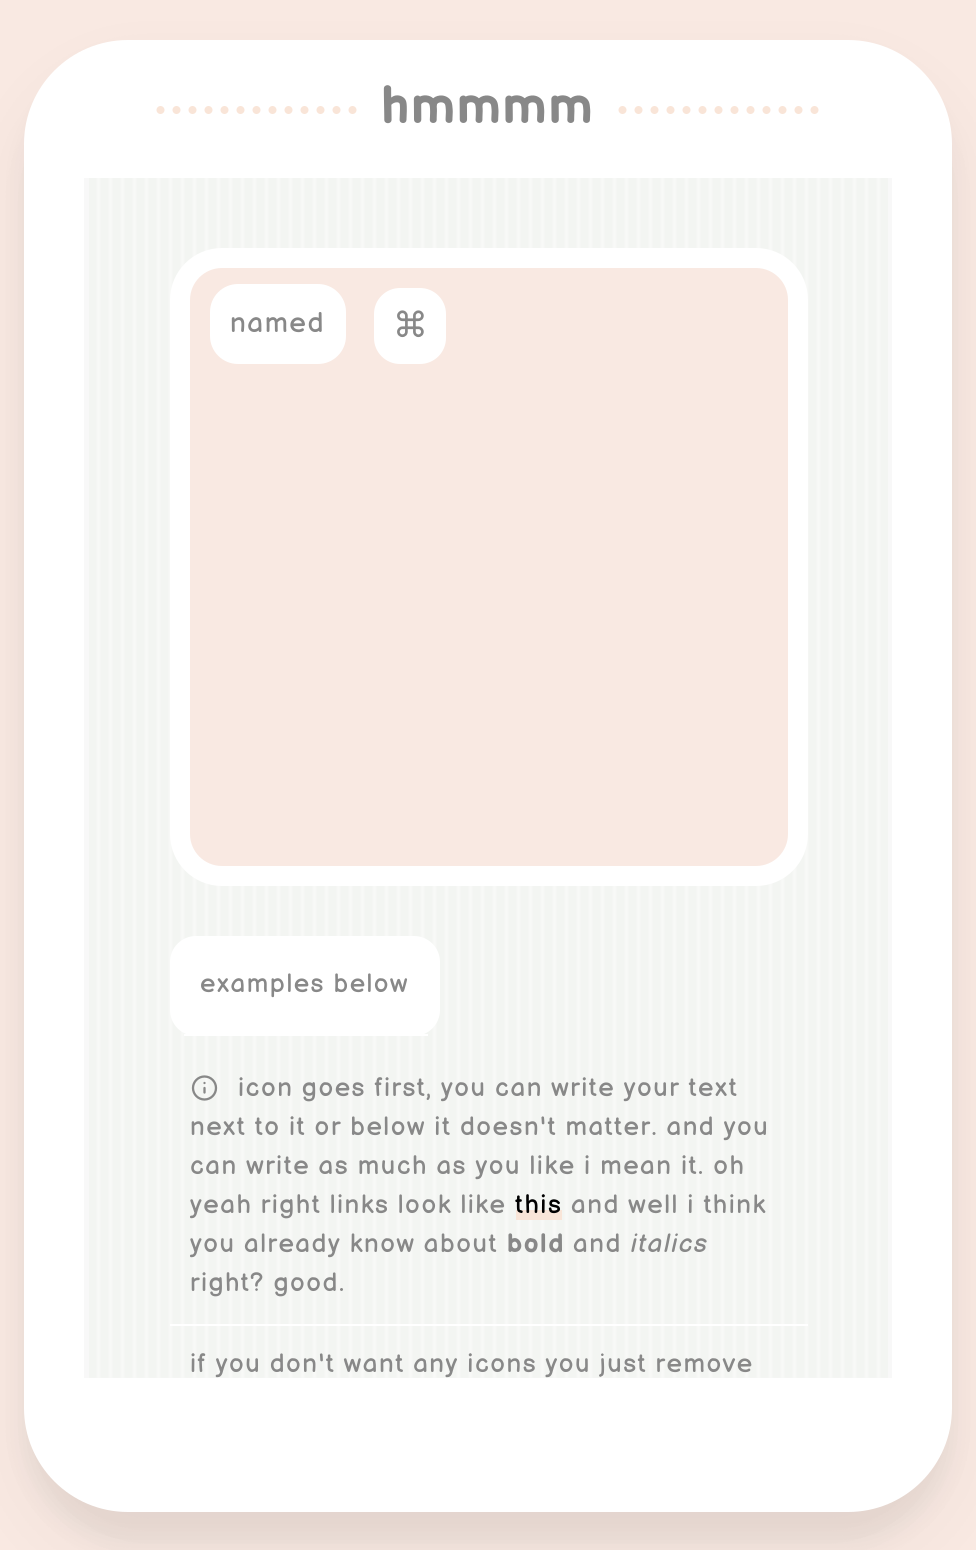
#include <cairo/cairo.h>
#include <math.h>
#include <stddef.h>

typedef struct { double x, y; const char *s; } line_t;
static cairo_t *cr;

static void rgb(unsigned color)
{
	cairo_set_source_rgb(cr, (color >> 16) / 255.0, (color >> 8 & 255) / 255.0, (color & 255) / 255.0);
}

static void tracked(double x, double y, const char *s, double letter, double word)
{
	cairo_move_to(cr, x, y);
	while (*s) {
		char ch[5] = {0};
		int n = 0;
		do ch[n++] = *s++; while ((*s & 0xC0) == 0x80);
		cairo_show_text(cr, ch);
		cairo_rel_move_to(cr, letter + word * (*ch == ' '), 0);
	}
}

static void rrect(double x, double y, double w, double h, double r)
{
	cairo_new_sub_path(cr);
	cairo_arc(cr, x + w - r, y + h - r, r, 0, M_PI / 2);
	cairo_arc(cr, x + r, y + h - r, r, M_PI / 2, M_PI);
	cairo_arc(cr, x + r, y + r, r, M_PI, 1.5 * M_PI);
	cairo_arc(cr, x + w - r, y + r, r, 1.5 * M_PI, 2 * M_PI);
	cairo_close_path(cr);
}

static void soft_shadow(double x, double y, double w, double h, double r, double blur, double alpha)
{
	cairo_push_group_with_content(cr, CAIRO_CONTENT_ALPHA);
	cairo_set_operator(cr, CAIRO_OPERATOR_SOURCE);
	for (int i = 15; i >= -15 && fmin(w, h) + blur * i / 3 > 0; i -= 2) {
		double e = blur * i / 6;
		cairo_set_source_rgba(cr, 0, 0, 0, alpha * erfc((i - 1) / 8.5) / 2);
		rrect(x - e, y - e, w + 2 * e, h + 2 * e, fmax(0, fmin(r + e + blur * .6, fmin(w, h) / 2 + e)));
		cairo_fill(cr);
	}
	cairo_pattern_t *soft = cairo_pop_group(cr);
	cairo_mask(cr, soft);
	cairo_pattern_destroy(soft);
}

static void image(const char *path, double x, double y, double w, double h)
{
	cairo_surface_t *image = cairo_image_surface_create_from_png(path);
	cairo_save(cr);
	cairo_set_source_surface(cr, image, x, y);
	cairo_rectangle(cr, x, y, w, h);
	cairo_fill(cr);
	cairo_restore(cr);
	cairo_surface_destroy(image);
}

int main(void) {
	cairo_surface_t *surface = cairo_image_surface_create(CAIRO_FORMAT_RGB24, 976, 1550);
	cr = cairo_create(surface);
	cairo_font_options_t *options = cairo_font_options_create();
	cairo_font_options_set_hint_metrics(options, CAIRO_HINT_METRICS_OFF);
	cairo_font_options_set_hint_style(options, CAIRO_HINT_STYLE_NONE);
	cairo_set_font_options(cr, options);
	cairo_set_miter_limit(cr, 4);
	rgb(0xf9e9e2);
	cairo_paint(cr);
	rgb(0x000000);
	soft_shadow(24, 70, 928, 1472, 104, 12, 0.05);
	soft_shadow(24, 78, 928, 1472, 104, 38, 0.05);
	rgb(0xffffff);
	rrect(24, 40, 928, 1472, 104);
	cairo_fill(cr);
	cairo_new_path(cr);
	cairo_move_to(cr, 160.5, 110);
	cairo_line_to(cr, 354.5, 110);
	rgb(0xf9e5d8);
	cairo_set_line_width(cr, 8);
	cairo_set_line_cap(cr, CAIRO_LINE_CAP_ROUND);
	cairo_set_dash(cr, (double[]){0, 16}, 2, 0);
	cairo_stroke(cr);
	cairo_new_path(cr);
	cairo_move_to(cr, 622.5, 110);
	cairo_line_to(cr, 814.5, 110);
	cairo_stroke(cr);
	rgb(0xf8f8f8);
	cairo_rectangle(cr, 84, 178, 808, 1200);
	cairo_fill(cr);
	image("img/1.png", 89, 178, 799, 1200);
	rgb(0xf9e9e2);
	rrect(180, 258, 618, 618, 42);
	cairo_fill_preserve(cr);
	rgb(0xffffff);
	cairo_set_line_width(cr, 20);
	cairo_set_line_cap(cr, CAIRO_LINE_CAP_BUTT);
	cairo_set_dash(cr, NULL, 0, 0);
	cairo_stroke(cr);
	rrect(210, 284, 136, 80, 28);
	cairo_fill(cr);
	rrect(374, 288, 72, 76, 26);
	cairo_fill(cr);
	image("img/2.png", 397, 310, 27, 28);
	rrect(170, 936, 270, 100, 26);
	cairo_fill(cr);
	cairo_rectangle(cr, 184, 1034, 244, 2);
	cairo_fill(cr);
	cairo_rectangle(cr, 170, 1324, 638, 2);
	cairo_fill(cr);
	cairo_arc(cr, 204.5, 1088, 11.5, 0, 2 * M_PI);
	rgb(0x888888);
	cairo_set_line_width(cr, 2.3);
	cairo_stroke(cr);
	cairo_new_path(cr);
	cairo_move_to(cr, 204.5, 1092.5);
	cairo_line_to(cr, 204.5, 1088);
	cairo_move_to(cr, 204.5, 1083);
	cairo_line_to(cr, 204.5, 1083);
	cairo_set_line_cap(cr, CAIRO_LINE_CAP_ROUND);
	cairo_set_line_join(cr, CAIRO_LINE_JOIN_ROUND);
	cairo_stroke(cr);
	rgb(0xf9e5d8);
	cairo_rectangle(cr, 516, 1210, 46, 10);
	cairo_fill(cr);
	cairo_select_font_face(cr, "Balsamiq Sans", CAIRO_FONT_SLANT_NORMAL, CAIRO_FONT_WEIGHT_BOLD);
	cairo_set_font_size(cr, 52);
	rgb(0x888888);
	tracked(381, 123, "hmmmm", 1.5, 0);
	cairo_select_font_face(cr, "Balsamiq Sans", CAIRO_FONT_SLANT_NORMAL, CAIRO_FONT_WEIGHT_NORMAL);
	cairo_set_font_size(cr, 28);
	tracked(230, 332, "named", 1.5, 0);
	cairo_set_font_size(cr, 26);
	{
		static const line_t items[] = {
			{200, 992, "examples below"},
			{238, 1096, "icon goes first, you can write your text"},
			{190, 1135, "next to it or below it doesn't matter. and you"},
			{190, 1174, "can write as much as you like i mean it. oh"},
			{190, 1213, "yeah right links look like"},
		};
		for (size_t i = 0; i < sizeof items / sizeof *items; i++) {
			tracked(items[i].x, items[i].y, items[i].s, 1.5, 0);
		}
	}
	rgb(0x000000);
	tracked(515, 1213, "this", 1.5, 0);
	rgb(0x888888);
	tracked(571, 1213, "and well i think", 1.5, 0);
	tracked(190, 1252, "you already know about", 1.5, 0);
	cairo_select_font_face(cr, "Balsamiq Sans", CAIRO_FONT_SLANT_NORMAL, CAIRO_FONT_WEIGHT_BOLD);
	tracked(507, 1252, "bold", 1.5, 0);
	cairo_select_font_face(cr, "Balsamiq Sans", CAIRO_FONT_SLANT_NORMAL, CAIRO_FONT_WEIGHT_NORMAL);
	tracked(573, 1252, "and", 1.5, 0);
	cairo_select_font_face(cr, "Balsamiq Sans", CAIRO_FONT_SLANT_ITALIC, CAIRO_FONT_WEIGHT_NORMAL);
	tracked(631, 1252, "italics", 1.5, 0);
	cairo_select_font_face(cr, "Balsamiq Sans", CAIRO_FONT_SLANT_NORMAL, CAIRO_FONT_WEIGHT_NORMAL);
	tracked(190, 1291, "right? good.", 1.5, 0);
	tracked(190, 1372, "if you don't want any icons you just remove", 1.5, 0);
	cairo_surface_write_to_png(surface, "page.png");
	cairo_font_options_destroy(options);
	cairo_destroy(cr);
	cairo_surface_destroy(surface);
	return 0;
}
